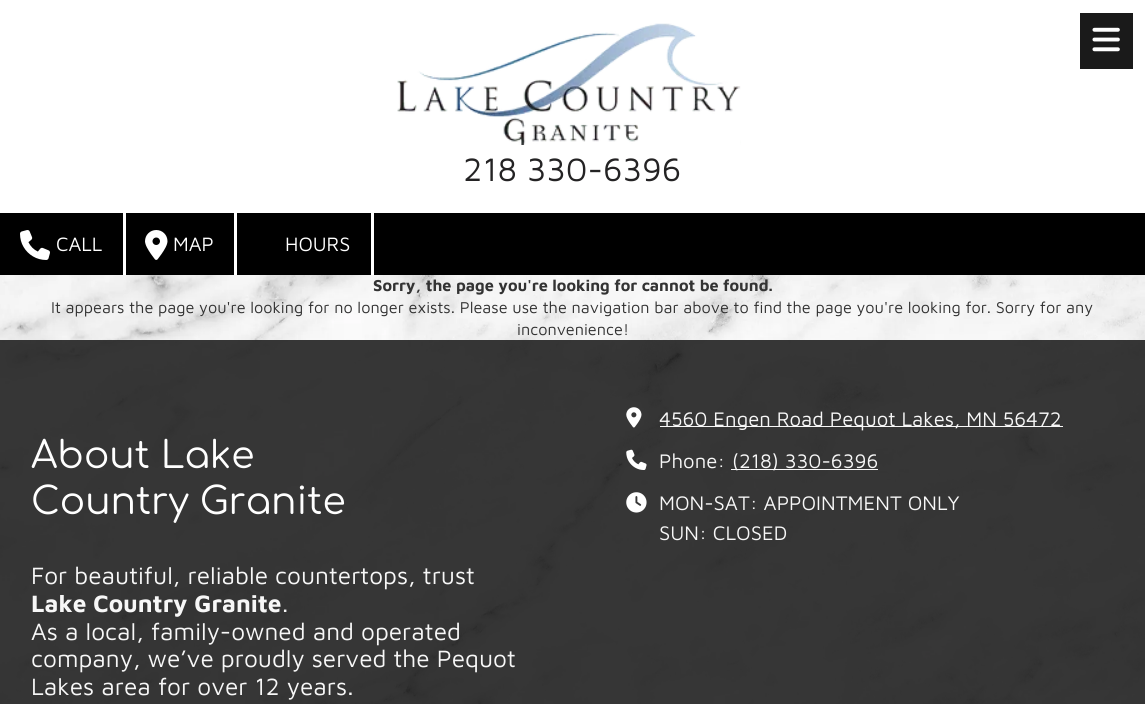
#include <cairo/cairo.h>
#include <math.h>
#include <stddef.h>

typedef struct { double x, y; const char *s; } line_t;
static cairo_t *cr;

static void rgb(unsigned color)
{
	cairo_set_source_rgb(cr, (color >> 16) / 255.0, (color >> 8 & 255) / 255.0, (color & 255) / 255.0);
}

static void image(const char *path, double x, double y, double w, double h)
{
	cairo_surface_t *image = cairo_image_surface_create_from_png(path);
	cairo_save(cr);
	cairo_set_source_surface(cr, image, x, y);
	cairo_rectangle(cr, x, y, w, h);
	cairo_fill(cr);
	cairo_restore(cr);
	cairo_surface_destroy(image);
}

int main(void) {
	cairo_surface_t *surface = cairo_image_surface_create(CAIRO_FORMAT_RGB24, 1145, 704);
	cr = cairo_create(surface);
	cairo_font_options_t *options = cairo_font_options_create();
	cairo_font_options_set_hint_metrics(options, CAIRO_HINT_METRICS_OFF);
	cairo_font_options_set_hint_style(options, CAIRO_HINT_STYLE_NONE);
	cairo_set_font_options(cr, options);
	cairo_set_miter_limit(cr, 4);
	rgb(0xffffff);
	cairo_paint(cr);
	rgb(0x1a1a1a);
	cairo_rectangle(cr, 1080, 13, 53, 56);
	cairo_fill(cr);
	image("img/1.png", 1092, 27, 28, 25);
	image("img/2.png", 397, 23, 344, 122);
	rgb(0x000000);
	cairo_rectangle(cr, 0, 213, 1145, 62);
	cairo_fill(cr);
	rgb(0xffffff);
	cairo_rectangle(cr, 123, 213, 3, 62);
	cairo_fill(cr);
	image("img/3.png", 20, 230, 30, 30);
	cairo_rectangle(cr, 234, 213, 3, 62);
	cairo_fill(cr);
	image("img/4.png", 145, 230, 23, 30);
	cairo_rectangle(cr, 371, 213, 3, 62);
	cairo_fill(cr);
	image("img/8.png", 0, 275, 1145, 429);
	cairo_set_source_rgba(cr, 0.122, 0.122, 0.122, 0.89);
	cairo_rectangle(cr, 0, 340, 1145, 364);
	cairo_fill(cr);
	image("img/5.png", 626, 407, 16, 21);
	rgb(0xf7f7f7);
	cairo_rectangle(cr, 660, 426, 403, 1);
	cairo_fill(cr);
	image("img/6.png", 626, 449, 21, 21);
	cairo_rectangle(cr, 731, 469, 147, 1);
	cairo_fill(cr);
	image("img/7.png", 626, 492, 21, 21);
	cairo_select_font_face(cr, "Maven Pro", CAIRO_FONT_SLANT_NORMAL, CAIRO_FONT_WEIGHT_NORMAL);
	cairo_set_font_size(cr, 33.5);
	rgb(0x242324);
	cairo_move_to(cr, 463, 181);
	cairo_show_text(cr, "218 330-6396");
	cairo_set_font_size(cr, 20);
	rgb(0xffffff);
	{
		static const line_t items[] = {
			{56, 251, "CALL"},
			{173, 251, "MAP"},
			{285, 251, "HOURS"},
		};
		for (size_t i = 0; i < sizeof items / sizeof *items; i++) {
			cairo_move_to(cr, items[i].x, items[i].y);
			cairo_show_text(cr, items[i].s);
		}
	}
	cairo_select_font_face(cr, "Maven Pro", CAIRO_FONT_SLANT_NORMAL, CAIRO_FONT_WEIGHT_BOLD);
	cairo_set_font_size(cr, 16.25);
	rgb(0x333333);
	cairo_move_to(cr, 373, 291);
	cairo_show_text(cr, "Sorry, the page you're looking for cannot be found.");
	cairo_select_font_face(cr, "Maven Pro", CAIRO_FONT_SLANT_NORMAL, CAIRO_FONT_WEIGHT_NORMAL);
	cairo_move_to(cr, 51, 313);
	cairo_show_text(cr, "It appears the page you're looking for no longer exists. Please use the navigation bar above to find the page you're looking for. Sorry for any");
	cairo_move_to(cr, 517, 335);
	cairo_show_text(cr, "inconvenience!");
	cairo_select_font_face(cr, "Comfortaa", CAIRO_FONT_SLANT_NORMAL, CAIRO_FONT_WEIGHT_NORMAL);
	cairo_set_font_size(cr, 37.5);
	rgb(0xffffff);
	cairo_move_to(cr, 31, 468);
	cairo_show_text(cr, "About Lake");
	cairo_move_to(cr, 31, 514);
	cairo_show_text(cr, "Country Granite");
	cairo_select_font_face(cr, "Maven Pro", CAIRO_FONT_SLANT_NORMAL, CAIRO_FONT_WEIGHT_NORMAL);
	cairo_set_font_size(cr, 24.4);
	rgb(0xf7f7f7);
	cairo_move_to(cr, 31, 584);
	cairo_show_text(cr, "For beautiful, reliable countertops, trust");
	cairo_select_font_face(cr, "Maven Pro", CAIRO_FONT_SLANT_NORMAL, CAIRO_FONT_WEIGHT_BOLD);
	cairo_move_to(cr, 31, 612);
	cairo_show_text(cr, "Lake Country Granite");
	cairo_select_font_face(cr, "Maven Pro", CAIRO_FONT_SLANT_NORMAL, CAIRO_FONT_WEIGHT_NORMAL);
	{
		static const line_t items[] = {
			{282, 612, "."},
			{31, 640, "As a local, family-owned and operated"},
			{31, 667, "company, we’ve proudly served the Pequot"},
			{31, 695, "Lakes area for over 12 years."},
		};
		for (size_t i = 0; i < sizeof items / sizeof *items; i++) {
			cairo_move_to(cr, items[i].x, items[i].y);
			cairo_show_text(cr, items[i].s);
		}
	}
	cairo_set_font_size(cr, 20.3);
	{
		static const line_t items[] = {
			{659, 426, "4560 Engen Road Pequot Lakes, MN 56472"},
			{659, 468, "Phone:"},
			{732, 468, "(218) 330-6396"},
			{659, 510, "MON-SAT: APPOINTMENT ONLY"},
			{659, 540, "SUN: CLOSED"},
		};
		for (size_t i = 0; i < sizeof items / sizeof *items; i++) {
			cairo_move_to(cr, items[i].x, items[i].y);
			cairo_show_text(cr, items[i].s);
		}
	}
	cairo_surface_write_to_png(surface, "page.png");
	cairo_font_options_destroy(options);
	cairo_destroy(cr);
	cairo_surface_destroy(surface);
	return 0;
}
